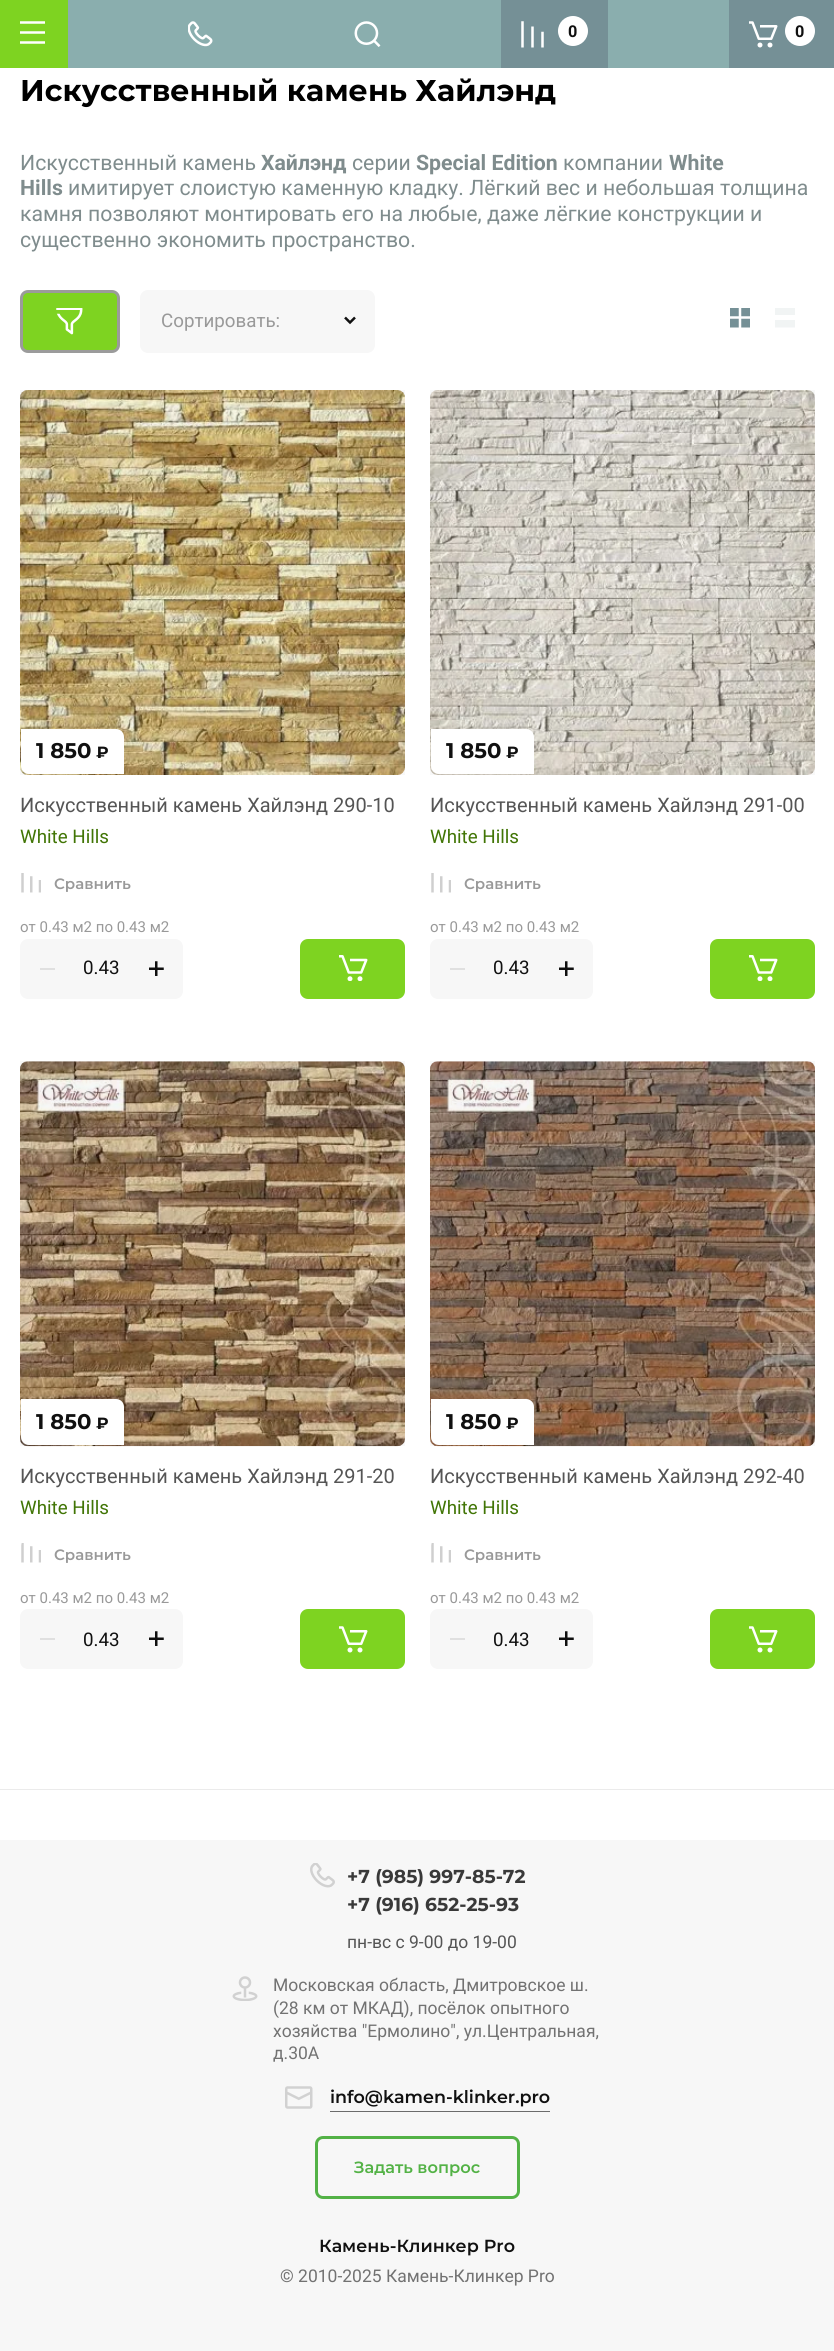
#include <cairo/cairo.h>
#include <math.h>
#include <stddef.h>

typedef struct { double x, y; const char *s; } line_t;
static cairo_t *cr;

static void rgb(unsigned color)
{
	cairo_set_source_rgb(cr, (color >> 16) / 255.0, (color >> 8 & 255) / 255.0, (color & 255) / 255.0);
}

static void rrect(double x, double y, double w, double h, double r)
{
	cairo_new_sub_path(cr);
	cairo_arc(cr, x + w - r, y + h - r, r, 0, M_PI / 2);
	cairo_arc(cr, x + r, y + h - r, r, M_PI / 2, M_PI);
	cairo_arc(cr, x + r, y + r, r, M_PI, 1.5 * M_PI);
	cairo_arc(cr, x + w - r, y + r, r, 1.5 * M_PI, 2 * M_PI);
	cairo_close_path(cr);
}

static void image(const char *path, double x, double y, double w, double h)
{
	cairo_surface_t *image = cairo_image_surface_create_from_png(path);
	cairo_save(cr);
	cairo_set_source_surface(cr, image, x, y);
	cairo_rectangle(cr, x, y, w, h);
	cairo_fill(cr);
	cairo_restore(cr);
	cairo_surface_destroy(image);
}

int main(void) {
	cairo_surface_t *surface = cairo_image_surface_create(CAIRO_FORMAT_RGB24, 834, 2351);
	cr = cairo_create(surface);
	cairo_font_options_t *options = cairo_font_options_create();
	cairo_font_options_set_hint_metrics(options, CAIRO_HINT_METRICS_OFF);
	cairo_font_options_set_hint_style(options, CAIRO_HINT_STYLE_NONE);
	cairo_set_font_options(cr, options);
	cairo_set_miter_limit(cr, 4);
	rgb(0xffffff);
	cairo_paint(cr);
	rgb(0x8aaeae);
	cairo_rectangle(cr, 68, 0, 661, 68);
	cairo_fill(cr);
	rgb(0x7ed321);
	cairo_rectangle(cr, 0, 0, 68, 68);
	cairo_fill(cr);
	image("img/1.png", 20, 21, 25, 23);
	image("img/2.png", 188, 21, 25, 26);
	image("img/3.png", 354, 21, 27, 26);
	rgb(0x759096);
	cairo_rectangle(cr, 501, 0, 107, 68);
	cairo_fill(cr);
	image("img/4.png", 521, 21, 23, 27);
	rgb(0xffffff);
	cairo_arc(cr, 573, 31, 15, 0, 2 * M_PI);
	cairo_fill(cr);
	rgb(0x759096);
	cairo_rectangle(cr, 729, 0, 105, 68);
	cairo_fill(cr);
	image("img/5.png", 749, 21, 29, 27);
	rgb(0xffffff);
	cairo_arc(cr, 800, 31, 15, 0, 2 * M_PI);
	cairo_fill(cr);
	rgb(0xebebeb);
	cairo_rectangle(cr, 0, 1789, 834, 1);
	cairo_fill(cr);
	rgb(0x7ed321);
	rrect(21.5, 291.5, 97, 60, 6.5);
	cairo_fill_preserve(cr);
	rgb(0x9b9b9b);
	cairo_set_line_width(cr, 3);
	cairo_stroke(cr);
	image("img/6.png", 56, 308, 27, 27);
	rgb(0xf7f7f7);
	rrect(140, 290, 235, 63, 8);
	cairo_fill(cr);
	cairo_new_path(cr);
	cairo_move_to(cr, 355, 317.5);
	cairo_line_to(cr, 350, 322.5);
	cairo_line_to(cr, 345, 317.5);
	rgb(0x101010);
	cairo_set_line_width(cr, 2.5);
	cairo_stroke(cr);
	image("img/7.png", 730, 308, 20, 20);
	image("img/8.png", 775, 308, 20, 20);
	image("img/9.png", 20, 390, 385, 385);
	cairo_set_source_rgba(cr, 0, 0, 0, 0.03);
	cairo_rectangle(cr, 20, 390, 385, 385);
	cairo_fill(cr);
	rgb(0xffffff);
	cairo_new_path(cr);
	cairo_move_to(cr, 21, 729);
	cairo_line_to(cr, 116, 729);
	cairo_curve_to(cr, 120.5, 729, 124, 732.5, 124, 737);
	cairo_line_to(cr, 124, 774);
	cairo_line_to(cr, 29, 774);
	cairo_curve_to(cr, 24.5, 774, 21, 770.5, 21, 766);
	cairo_close_path(cr);
	cairo_fill(cr);
	image("img/10.png", 21, 873, 20, 20);
	rgb(0xf7f7f7);
	rrect(20, 939, 163, 60, 8);
	cairo_fill(cr);
	rgb(0xe0e0e0);
	cairo_rectangle(cr, 40, 968, 15, 2);
	cairo_fill(cr);
	image("img/11.png", 149, 961, 15, 15);
	rgb(0x7ed321);
	rrect(300, 939, 105, 60, 8);
	cairo_fill(cr);
	image("img/12.png", 339, 955, 29, 26);
	image("img/13.png", 430, 390, 385, 385);
	cairo_set_source_rgba(cr, 0, 0, 0, 0.03);
	cairo_rectangle(cr, 430, 390, 385, 385);
	cairo_fill(cr);
	rgb(0xffffff);
	cairo_new_path(cr);
	cairo_move_to(cr, 431, 729);
	cairo_line_to(cr, 526, 729);
	cairo_curve_to(cr, 530.5, 729, 534, 732.5, 534, 737);
	cairo_line_to(cr, 534, 774);
	cairo_line_to(cr, 439, 774);
	cairo_curve_to(cr, 434.5, 774, 431, 770.5, 431, 766);
	cairo_close_path(cr);
	cairo_fill(cr);
	image("img/10.png", 431, 873, 20, 20);
	rgb(0xf7f7f7);
	rrect(430, 939, 163, 60, 8);
	cairo_fill(cr);
	rgb(0xe0e0e0);
	cairo_rectangle(cr, 450, 968, 15, 2);
	cairo_fill(cr);
	image("img/11.png", 559, 961, 15, 15);
	rgb(0x7ed321);
	rrect(710, 939, 105, 60, 8);
	cairo_fill(cr);
	image("img/12.png", 749, 955, 29, 26);
	image("img/14.png", 20, 1061, 385, 386);
	cairo_set_source_rgba(cr, 0, 0, 0, 0.03);
	cairo_rectangle(cr, 20, 1061, 385, 385);
	cairo_fill(cr);
	rgb(0xffffff);
	cairo_new_path(cr);
	cairo_move_to(cr, 21, 1399);
	cairo_line_to(cr, 116, 1399);
	cairo_curve_to(cr, 120.5, 1399, 124, 1402.5, 124, 1407);
	cairo_line_to(cr, 124, 1445);
	cairo_line_to(cr, 29, 1445);
	cairo_curve_to(cr, 24.5, 1445, 21, 1441.5, 21, 1437);
	cairo_close_path(cr);
	cairo_fill(cr);
	image("img/15.png", 21, 1543, 20, 20);
	rgb(0xf7f7f7);
	rrect(20, 1609, 163, 60, 8);
	cairo_fill(cr);
	rgb(0xe0e0e0);
	cairo_rectangle(cr, 40, 1638, 15, 2);
	cairo_fill(cr);
	image("img/11.png", 149, 1631, 15, 15);
	rgb(0x7ed321);
	rrect(300, 1609, 105, 60, 8);
	cairo_fill(cr);
	image("img/16.png", 339, 1626, 29, 27);
	image("img/17.png", 430, 1061, 385, 386);
	cairo_set_source_rgba(cr, 0, 0, 0, 0.03);
	cairo_rectangle(cr, 430, 1061, 385, 385);
	cairo_fill(cr);
	rgb(0xffffff);
	cairo_new_path(cr);
	cairo_move_to(cr, 431, 1399);
	cairo_line_to(cr, 526, 1399);
	cairo_curve_to(cr, 530.5, 1399, 534, 1402.5, 534, 1407);
	cairo_line_to(cr, 534, 1445);
	cairo_line_to(cr, 439, 1445);
	cairo_curve_to(cr, 434.5, 1445, 431, 1441.5, 431, 1437);
	cairo_close_path(cr);
	cairo_fill(cr);
	image("img/15.png", 431, 1543, 20, 20);
	rgb(0xf7f7f7);
	rrect(430, 1609, 163, 60, 8);
	cairo_fill(cr);
	rgb(0xe0e0e0);
	cairo_rectangle(cr, 450, 1638, 15, 2);
	cairo_fill(cr);
	image("img/11.png", 559, 1631, 15, 15);
	rgb(0x7ed321);
	rrect(710, 1609, 105, 60, 8);
	cairo_fill(cr);
	image("img/16.png", 749, 1626, 29, 27);
	rgb(0xf7f7f7);
	cairo_rectangle(cr, 0, 1840, 834, 511);
	cairo_fill(cr);
	image("img/18.png", 310, 1863, 25, 25);
	image("img/19.png", 232, 1976, 26, 25);
	image("img/20.png", 285, 2086, 28, 23);
	rgb(0x6c6c6c);
	cairo_rectangle(cr, 330, 2111, 220, 1);
	cairo_fill(cr);
	rrect(316.5, 2137.5, 202, 60, 6.5);
	rgb(0x53b246);
	cairo_set_line_width(cr, 3);
	cairo_stroke(cr);
	cairo_select_font_face(cr, "Roboto", CAIRO_FONT_SLANT_NORMAL, CAIRO_FONT_WEIGHT_BOLD);
	cairo_set_font_size(cr, 16.25);
	rgb(0x101010);
	cairo_move_to(cr, 568, 37);
	cairo_show_text(cr, "0");
	cairo_move_to(cr, 795, 37);
	cairo_show_text(cr, "0");
	cairo_select_font_face(cr, "Montserrat", CAIRO_FONT_SLANT_NORMAL, CAIRO_FONT_WEIGHT_BOLD);
	cairo_set_font_size(cr, 30);
	rgb(0x000000);
	cairo_move_to(cr, 20, 101);
	cairo_show_text(cr, "Искусственный камень Хайлэнд");
	cairo_select_font_face(cr, "Roboto", CAIRO_FONT_SLANT_NORMAL, CAIRO_FONT_WEIGHT_NORMAL);
	cairo_set_font_size(cr, 21.25);
	rgb(0x7f8c8d);
	cairo_move_to(cr, 20, 170);
	cairo_show_text(cr, "Искусственный камень");
	cairo_select_font_face(cr, "Roboto", CAIRO_FONT_SLANT_NORMAL, CAIRO_FONT_WEIGHT_BOLD);
	cairo_move_to(cr, 261, 170);
	cairo_show_text(cr, "Хайлэнд");
	cairo_select_font_face(cr, "Roboto", CAIRO_FONT_SLANT_NORMAL, CAIRO_FONT_WEIGHT_NORMAL);
	cairo_move_to(cr, 352, 170);
	cairo_show_text(cr, "серии");
	cairo_select_font_face(cr, "Roboto", CAIRO_FONT_SLANT_NORMAL, CAIRO_FONT_WEIGHT_BOLD);
	cairo_move_to(cr, 416, 170);
	cairo_show_text(cr, "Special Edition");
	cairo_select_font_face(cr, "Roboto", CAIRO_FONT_SLANT_NORMAL, CAIRO_FONT_WEIGHT_NORMAL);
	cairo_move_to(cr, 563, 170);
	cairo_show_text(cr, "компании");
	cairo_select_font_face(cr, "Roboto", CAIRO_FONT_SLANT_NORMAL, CAIRO_FONT_WEIGHT_BOLD);
	cairo_move_to(cr, 669, 170);
	cairo_show_text(cr, "White");
	cairo_move_to(cr, 20, 195);
	cairo_show_text(cr, "Hills");
	cairo_select_font_face(cr, "Roboto", CAIRO_FONT_SLANT_NORMAL, CAIRO_FONT_WEIGHT_NORMAL);
	{
		static const line_t items[] = {
			{68, 195, "имитирует слоистую каменную кладку. Лёгкий вес и небольшая толщина"},
			{20, 221, "камня позволяют монтировать его на любые, даже лёгкие конструкции и"},
			{20, 247, "существенно экономить пространство."},
		};
		for (size_t i = 0; i < sizeof items / sizeof *items; i++) {
			cairo_move_to(cr, items[i].x, items[i].y);
			cairo_show_text(cr, items[i].s);
		}
	}
	cairo_set_font_size(cr, 18.75);
	rgb(0x999999);
	cairo_move_to(cr, 161, 327);
	cairo_show_text(cr, "Сортировать:");
	cairo_select_font_face(cr, "Montserrat", CAIRO_FONT_SLANT_NORMAL, CAIRO_FONT_WEIGHT_BOLD);
	cairo_set_font_size(cr, 21.25);
	rgb(0x101010);
	cairo_move_to(cr, 36, 758);
	cairo_show_text(cr, "1 850");
	cairo_set_font_size(cr, 16.25);
	cairo_move_to(cr, 96, 758);
	cairo_show_text(cr, "₽");
	cairo_select_font_face(cr, "Roboto", CAIRO_FONT_SLANT_NORMAL, CAIRO_FONT_WEIGHT_NORMAL);
	cairo_set_font_size(cr, 20);
	rgb(0x555555);
	cairo_move_to(cr, 20, 812);
	cairo_show_text(cr, "Искусственный камень Хайлэнд 290-10");
	cairo_set_font_size(cr, 18.75);
	rgb(0x417505);
	cairo_move_to(cr, 20, 843);
	cairo_show_text(cr, "White Hills");
	cairo_select_font_face(cr, "Montserrat SemiBold", CAIRO_FONT_SLANT_NORMAL, CAIRO_FONT_WEIGHT_NORMAL);
	cairo_set_font_size(cr, 15);
	rgb(0x999999);
	cairo_move_to(cr, 54, 889);
	cairo_show_text(cr, "Сравнить");
	cairo_select_font_face(cr, "Roboto", CAIRO_FONT_SLANT_NORMAL, CAIRO_FONT_WEIGHT_NORMAL);
	cairo_move_to(cr, 20, 932);
	cairo_show_text(cr, "от 0.43 м2 по 0.43 м2");
	cairo_set_font_size(cr, 18.75);
	rgb(0x101010);
	cairo_move_to(cr, 83, 974);
	cairo_show_text(cr, "0.43");
	cairo_select_font_face(cr, "Montserrat", CAIRO_FONT_SLANT_NORMAL, CAIRO_FONT_WEIGHT_BOLD);
	cairo_set_font_size(cr, 21.25);
	cairo_move_to(cr, 446, 758);
	cairo_show_text(cr, "1 850");
	cairo_set_font_size(cr, 16.25);
	cairo_move_to(cr, 506, 758);
	cairo_show_text(cr, "₽");
	cairo_select_font_face(cr, "Roboto", CAIRO_FONT_SLANT_NORMAL, CAIRO_FONT_WEIGHT_NORMAL);
	cairo_set_font_size(cr, 20);
	rgb(0x555555);
	cairo_move_to(cr, 430, 812);
	cairo_show_text(cr, "Искусственный камень Хайлэнд 291-00");
	cairo_set_font_size(cr, 18.75);
	rgb(0x417505);
	cairo_move_to(cr, 430, 843);
	cairo_show_text(cr, "White Hills");
	cairo_select_font_face(cr, "Montserrat SemiBold", CAIRO_FONT_SLANT_NORMAL, CAIRO_FONT_WEIGHT_NORMAL);
	cairo_set_font_size(cr, 15);
	rgb(0x999999);
	cairo_move_to(cr, 464, 889);
	cairo_show_text(cr, "Сравнить");
	cairo_select_font_face(cr, "Roboto", CAIRO_FONT_SLANT_NORMAL, CAIRO_FONT_WEIGHT_NORMAL);
	cairo_move_to(cr, 430, 932);
	cairo_show_text(cr, "от 0.43 м2 по 0.43 м2");
	cairo_set_font_size(cr, 18.75);
	rgb(0x101010);
	cairo_move_to(cr, 493, 974);
	cairo_show_text(cr, "0.43");
	cairo_select_font_face(cr, "Montserrat", CAIRO_FONT_SLANT_NORMAL, CAIRO_FONT_WEIGHT_BOLD);
	cairo_set_font_size(cr, 21.25);
	cairo_move_to(cr, 36, 1429);
	cairo_show_text(cr, "1 850");
	cairo_set_font_size(cr, 16.25);
	cairo_move_to(cr, 96, 1429);
	cairo_show_text(cr, "₽");
	cairo_select_font_face(cr, "Roboto", CAIRO_FONT_SLANT_NORMAL, CAIRO_FONT_WEIGHT_NORMAL);
	cairo_set_font_size(cr, 20);
	rgb(0x555555);
	cairo_move_to(cr, 20, 1483);
	cairo_show_text(cr, "Искусственный камень Хайлэнд 291-20");
	cairo_set_font_size(cr, 18.75);
	rgb(0x417505);
	cairo_move_to(cr, 20, 1514);
	cairo_show_text(cr, "White Hills");
	cairo_select_font_face(cr, "Montserrat SemiBold", CAIRO_FONT_SLANT_NORMAL, CAIRO_FONT_WEIGHT_NORMAL);
	cairo_set_font_size(cr, 15);
	rgb(0x999999);
	cairo_move_to(cr, 54, 1560);
	cairo_show_text(cr, "Сравнить");
	cairo_select_font_face(cr, "Roboto", CAIRO_FONT_SLANT_NORMAL, CAIRO_FONT_WEIGHT_NORMAL);
	cairo_move_to(cr, 20, 1603);
	cairo_show_text(cr, "от 0.43 м2 по 0.43 м2");
	cairo_set_font_size(cr, 18.75);
	rgb(0x101010);
	cairo_move_to(cr, 83, 1646);
	cairo_show_text(cr, "0.43");
	cairo_select_font_face(cr, "Montserrat", CAIRO_FONT_SLANT_NORMAL, CAIRO_FONT_WEIGHT_BOLD);
	cairo_set_font_size(cr, 21.25);
	cairo_move_to(cr, 446, 1429);
	cairo_show_text(cr, "1 850");
	cairo_set_font_size(cr, 16.25);
	cairo_move_to(cr, 506, 1429);
	cairo_show_text(cr, "₽");
	cairo_select_font_face(cr, "Roboto", CAIRO_FONT_SLANT_NORMAL, CAIRO_FONT_WEIGHT_NORMAL);
	cairo_set_font_size(cr, 20);
	rgb(0x555555);
	cairo_move_to(cr, 430, 1483);
	cairo_show_text(cr, "Искусственный камень Хайлэнд 292-40");
	cairo_set_font_size(cr, 18.75);
	rgb(0x417505);
	cairo_move_to(cr, 430, 1514);
	cairo_show_text(cr, "White Hills");
	cairo_select_font_face(cr, "Montserrat SemiBold", CAIRO_FONT_SLANT_NORMAL, CAIRO_FONT_WEIGHT_NORMAL);
	cairo_set_font_size(cr, 15);
	rgb(0x999999);
	cairo_move_to(cr, 464, 1560);
	cairo_show_text(cr, "Сравнить");
	cairo_select_font_face(cr, "Roboto", CAIRO_FONT_SLANT_NORMAL, CAIRO_FONT_WEIGHT_NORMAL);
	cairo_move_to(cr, 430, 1603);
	cairo_show_text(cr, "от 0.43 м2 по 0.43 м2");
	cairo_set_font_size(cr, 18.75);
	rgb(0x101010);
	cairo_move_to(cr, 493, 1646);
	cairo_show_text(cr, "0.43");
	cairo_select_font_face(cr, "Montserrat", CAIRO_FONT_SLANT_NORMAL, CAIRO_FONT_WEIGHT_BOLD);
	rgb(0x393939);
	cairo_move_to(cr, 347, 1883);
	cairo_show_text(cr, "+7 (985) 997-85-72");
	cairo_move_to(cr, 347, 1911);
	cairo_show_text(cr, "+7 (916) 652-25-93");
	cairo_select_font_face(cr, "Roboto", CAIRO_FONT_SLANT_NORMAL, CAIRO_FONT_WEIGHT_NORMAL);
	cairo_set_font_size(cr, 17.5);
	rgb(0x555555);
	cairo_move_to(cr, 347, 1948);
	cairo_show_text(cr, "пн-вс с 9-00 до 19-00");
	rgb(0x727272);
	{
		static const line_t items[] = {
			{273, 1991, "Московская область, Дмитровское ш."},
			{273, 2014, "(28 км от МКАД), посёлок опытного"},
			{273, 2037, "хозяйства \"Ермолино\", ул.Центральная,"},
			{273, 2059, "д.30А"},
		};
		for (size_t i = 0; i < sizeof items / sizeof *items; i++) {
			cairo_move_to(cr, items[i].x, items[i].y);
			cairo_show_text(cr, items[i].s);
		}
	}
	cairo_select_font_face(cr, "Montserrat SemiBold", CAIRO_FONT_SLANT_NORMAL, CAIRO_FONT_WEIGHT_NORMAL);
	rgb(0x101010);
	cairo_move_to(cr, 330, 2103);
	cairo_show_text(cr, "info@kamen-klinker.pro");
	cairo_set_font_size(cr, 16.25);
	rgb(0x53b246);
	cairo_move_to(cr, 354, 2173);
	cairo_show_text(cr, "Задать вопрос");
	cairo_set_font_size(cr, 17.5);
	rgb(0x101010);
	cairo_move_to(cr, 319, 2252);
	cairo_show_text(cr, "Камень-Клинкер Pro");
	cairo_select_font_face(cr, "Roboto", CAIRO_FONT_SLANT_NORMAL, CAIRO_FONT_WEIGHT_NORMAL);
	rgb(0x727272);
	cairo_move_to(cr, 280, 2282);
	cairo_show_text(cr, "© 2010-2025 Камень-Клинкер Pro");
	cairo_surface_write_to_png(surface, "page.png");
	cairo_font_options_destroy(options);
	cairo_destroy(cr);
	cairo_surface_destroy(surface);
	return 0;
}
